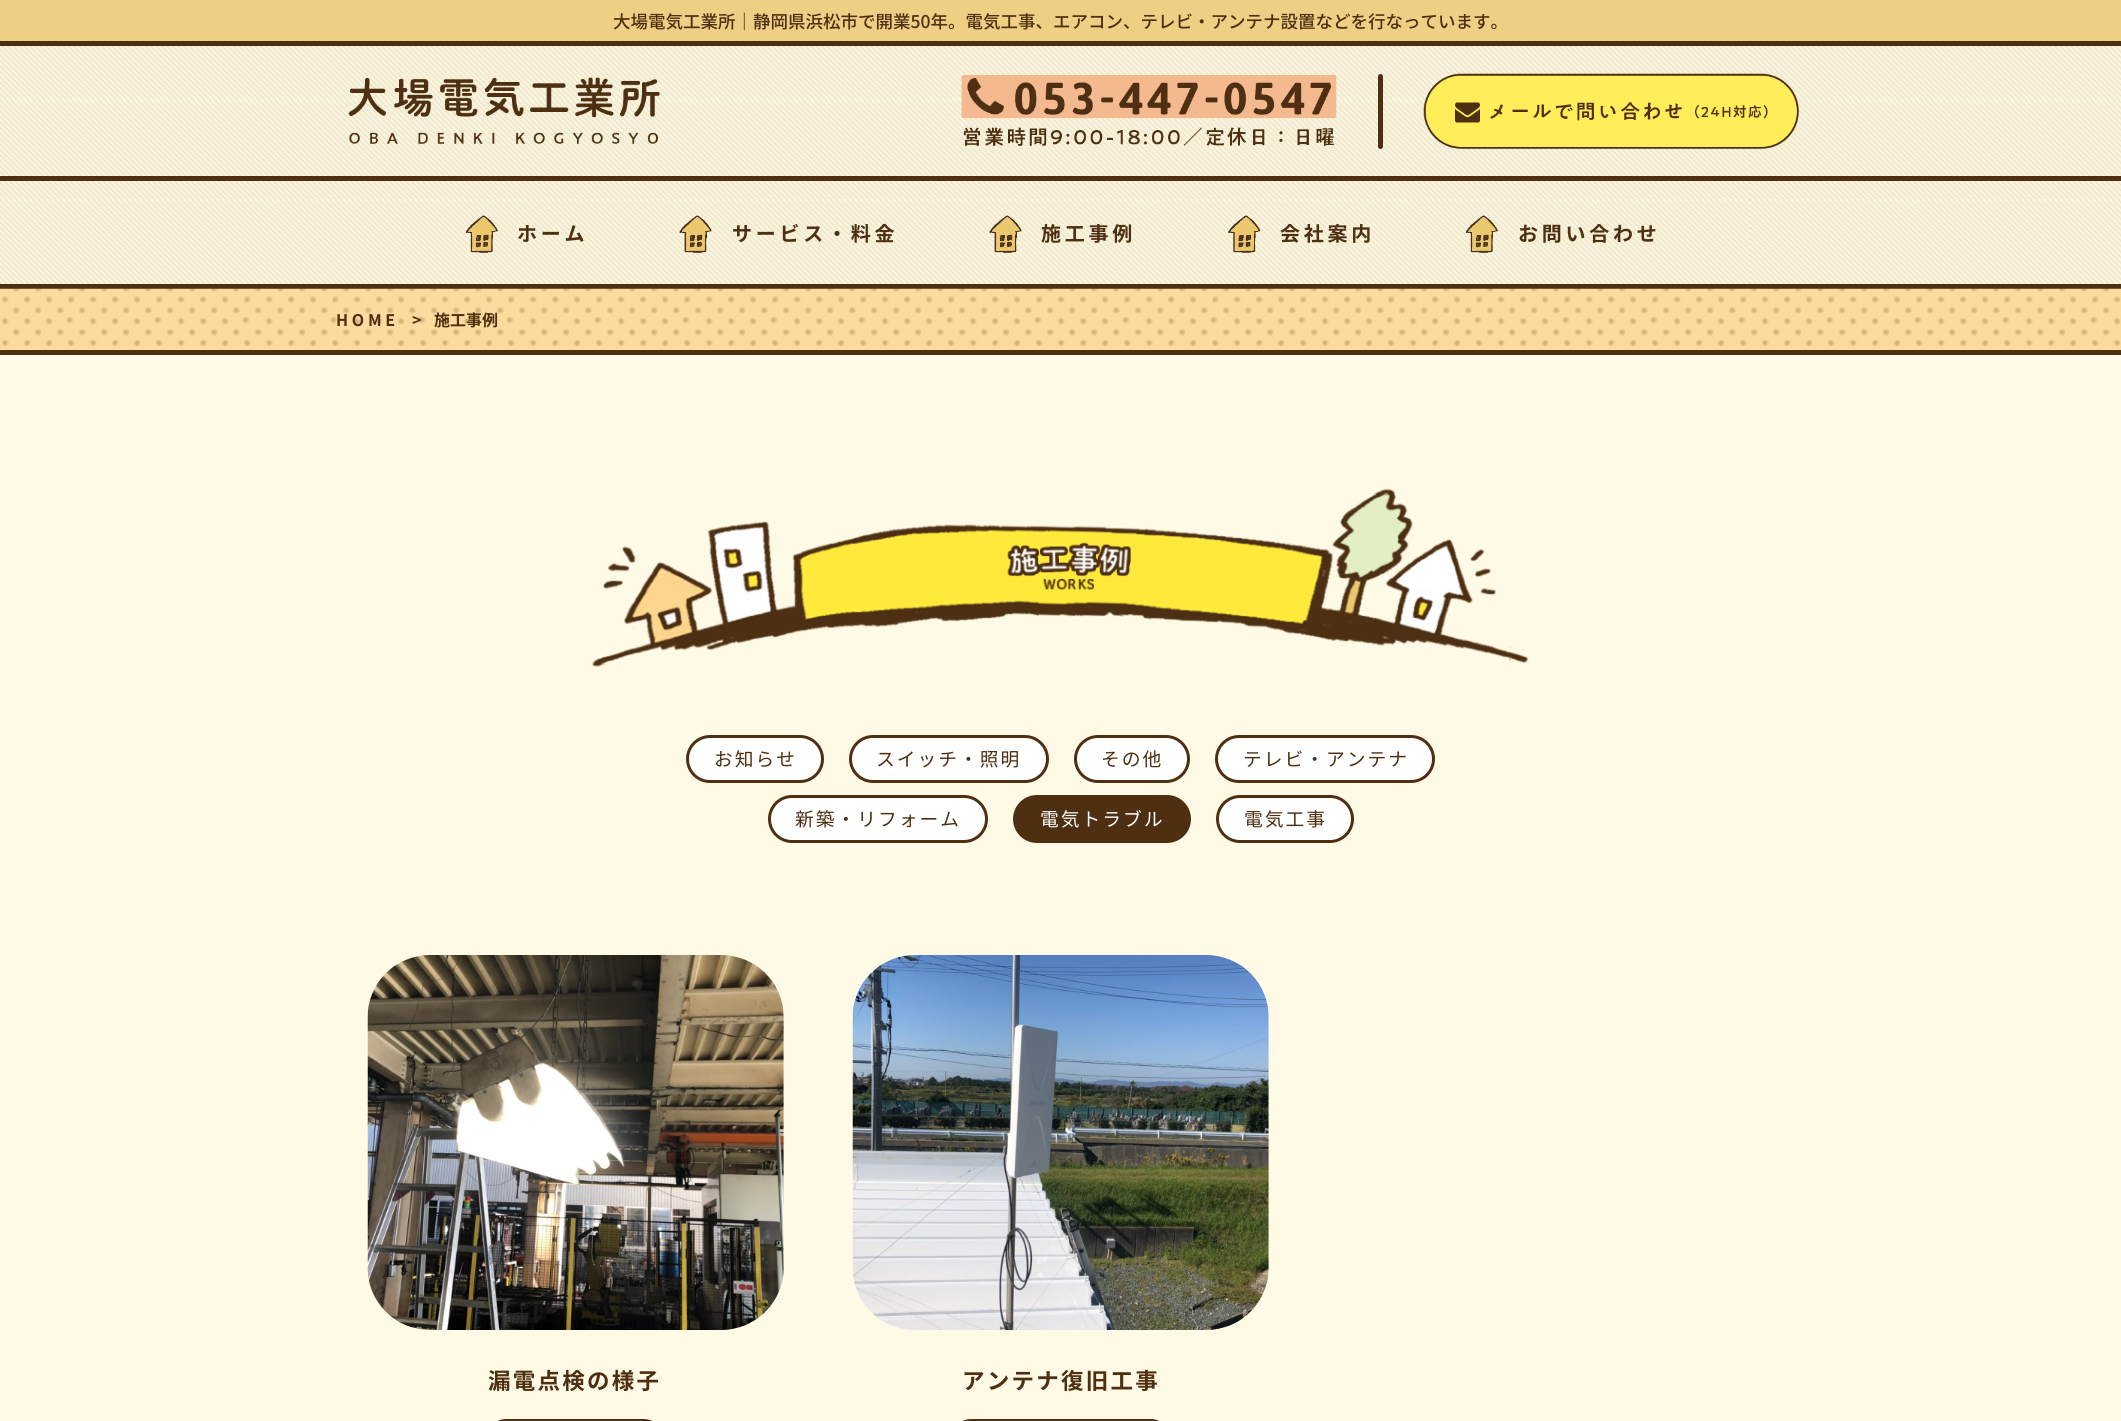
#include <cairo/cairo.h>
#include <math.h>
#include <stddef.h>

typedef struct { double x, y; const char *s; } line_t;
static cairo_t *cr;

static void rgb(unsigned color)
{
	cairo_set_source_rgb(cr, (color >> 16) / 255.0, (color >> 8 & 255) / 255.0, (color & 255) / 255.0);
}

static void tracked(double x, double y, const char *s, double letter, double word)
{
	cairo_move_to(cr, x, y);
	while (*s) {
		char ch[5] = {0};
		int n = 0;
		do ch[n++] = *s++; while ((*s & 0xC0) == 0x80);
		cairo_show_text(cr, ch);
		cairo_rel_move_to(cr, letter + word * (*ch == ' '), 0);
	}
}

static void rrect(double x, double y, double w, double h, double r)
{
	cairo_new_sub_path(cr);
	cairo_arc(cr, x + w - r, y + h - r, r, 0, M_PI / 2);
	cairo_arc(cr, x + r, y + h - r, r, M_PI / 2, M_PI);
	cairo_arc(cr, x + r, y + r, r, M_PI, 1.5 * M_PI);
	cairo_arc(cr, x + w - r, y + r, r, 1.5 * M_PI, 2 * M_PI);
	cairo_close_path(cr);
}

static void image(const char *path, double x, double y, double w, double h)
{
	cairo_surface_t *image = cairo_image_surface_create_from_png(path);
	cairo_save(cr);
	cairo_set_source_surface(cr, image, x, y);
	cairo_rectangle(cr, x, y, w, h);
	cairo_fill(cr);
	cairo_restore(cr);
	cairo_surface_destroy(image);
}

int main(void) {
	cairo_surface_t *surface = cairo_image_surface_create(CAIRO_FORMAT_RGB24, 2121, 1421);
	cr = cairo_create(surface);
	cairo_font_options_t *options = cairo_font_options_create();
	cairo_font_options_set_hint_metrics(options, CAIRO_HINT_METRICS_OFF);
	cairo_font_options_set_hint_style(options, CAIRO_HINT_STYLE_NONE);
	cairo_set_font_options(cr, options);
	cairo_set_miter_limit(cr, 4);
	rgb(0xffffff);
	cairo_paint(cr);
	image("img/1.png", 0, 46, 2121, 238);
	rgb(0x4e2f11);
	cairo_rectangle(cr, 0, 41, 2121, 5);
	cairo_fill(cr);
	rgb(0xeecf84);
	cairo_rectangle(cr, 0, 0, 2121, 41);
	cairo_fill(cr);
	image("img/2.png", 348, 77, 312, 67);
	image("img/3.png", 961, 75, 376, 72);
	rgb(0x4e2f11);
	rrect(1378, 74, 5, 75, 2.5);
	cairo_fill(cr);
	image("img/4.png", 1423, 73, 376, 76);
	cairo_rectangle(cr, 0, 176, 2121, 5);
	cairo_fill(cr);
	cairo_rectangle(cr, 0, 284, 2121, 5);
	cairo_fill(cr);
	image("img/5.png", 465, 215, 33, 38);
	image("img/6.png", 679, 215, 33, 38);
	image("img/7.png", 989, 215, 33, 38);
	image("img/8.png", 1228, 215, 33, 38);
	image("img/9.png", 1465, 215, 33, 38);
	image("img/10.png", 0, 288, 2121, 62);
	cairo_rectangle(cr, 0, 350, 2121, 5);
	cairo_fill(cr);
	rgb(0xfffae6);
	cairo_rectangle(cr, 0, 355, 2121, 1066);
	cairo_fill(cr);
	image("img/11.png", 592, 488, 937, 179);
	rgb(0xffffff);
	rrect(687.5, 736.5, 135, 45, 22.5);
	cairo_fill_preserve(cr);
	rgb(0x4e2f11);
	cairo_set_line_width(cr, 3);
	cairo_stroke(cr);
	rgb(0xffffff);
	rrect(850.5, 736.5, 197, 45, 22.5);
	cairo_fill_preserve(cr);
	rgb(0x4e2f11);
	cairo_stroke(cr);
	rgb(0xffffff);
	rrect(1075.5, 736.5, 113, 45, 22.5);
	cairo_fill_preserve(cr);
	rgb(0x4e2f11);
	cairo_stroke(cr);
	rgb(0xffffff);
	rrect(1216.5, 736.5, 217, 45, 22.5);
	cairo_fill_preserve(cr);
	rgb(0x4e2f11);
	cairo_stroke(cr);
	rgb(0xffffff);
	rrect(769.5, 796.5, 217, 45, 22.5);
	cairo_fill_preserve(cr);
	rgb(0x4e2f11);
	cairo_stroke(cr);
	rrect(1014.5, 796.5, 175, 45, 22.5);
	cairo_fill_preserve(cr);
	cairo_stroke(cr);
	rgb(0xffffff);
	rrect(1217.5, 796.5, 135, 45, 22.5);
	cairo_fill_preserve(cr);
	rgb(0x4e2f11);
	cairo_stroke(cr);
	image("img/12.png", 367, 955, 417, 375);
	rrect(486, 1419, 178, 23, 20.5);
	cairo_fill(cr);
	image("img/13.png", 852, 955, 417, 375);
	rrect(951, 1419, 220, 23, 20.5);
	cairo_fill(cr);
	cairo_select_font_face(cr, "Noto Sans CJK JP Medium", CAIRO_FONT_SLANT_NORMAL, CAIRO_FONT_WEIGHT_NORMAL);
	cairo_set_font_size(cr, 17.5);
	cairo_move_to(cr, 613, 28);
	cairo_show_text(cr, "大場電気工業所｜静岡県浜松市で開業50年。電気工事、エアコン、テレビ・アンテナ設置などを行なっています。");
	cairo_select_font_face(cr, "Noto Sans CJK JP", CAIRO_FONT_SLANT_NORMAL, CAIRO_FONT_WEIGHT_BOLD);
	cairo_set_font_size(cr, 20);
	{
		static const line_t items[] = {
			{517, 241, "ホーム"},
			{732, 241, "サービス・料金"},
			{1041, 241, "施工事例"},
			{1280, 241, "会社案内"},
			{1518, 241, "お問い合わせ"},
		};
		for (size_t i = 0; i < sizeof items / sizeof *items; i++) {
			tracked(items[i].x, items[i].y, items[i].s, 3.75, 0);
		}
	}
	cairo_set_font_size(cr, 16);
	tracked(336, 326, "HOME", 3.75, 0);
	cairo_move_to(cr, 412, 326);
	cairo_show_text(cr, ">");
	cairo_move_to(cr, 434, 326);
	cairo_show_text(cr, "施工事例");
	cairo_select_font_face(cr, "Noto Sans CJK JP", CAIRO_FONT_SLANT_NORMAL, CAIRO_FONT_WEIGHT_NORMAL);
	cairo_set_font_size(cr, 18.75);
	{
		static const line_t items[] = {
			{714, 766, "お知らせ"},
			{876, 766, "スイッチ・照明"},
			{1101, 766, "その他"},
			{1243, 766, "テレビ・アンテナ"},
			{795, 826, "新築・リフォーム"},
		};
		for (size_t i = 0; i < sizeof items / sizeof *items; i++) {
			tracked(items[i].x, items[i].y, items[i].s, 2, 0);
		}
	}
	rgb(0xffffff);
	tracked(1040, 826, "電気トラブル", 2, 0);
	rgb(0x4e2f11);
	tracked(1244, 826, "電気工事", 2, 0);
	cairo_select_font_face(cr, "Noto Sans CJK JP", CAIRO_FONT_SLANT_NORMAL, CAIRO_FONT_WEIGHT_BOLD);
	cairo_set_font_size(cr, 22.5);
	tracked(488, 1389, "漏電点検の様子", 2.25, 0);
	tracked(962, 1389, "アンテナ復旧工事", 2.25, 0);
	cairo_surface_write_to_png(surface, "page.png");
	cairo_font_options_destroy(options);
	cairo_destroy(cr);
	cairo_surface_destroy(surface);
	return 0;
}
